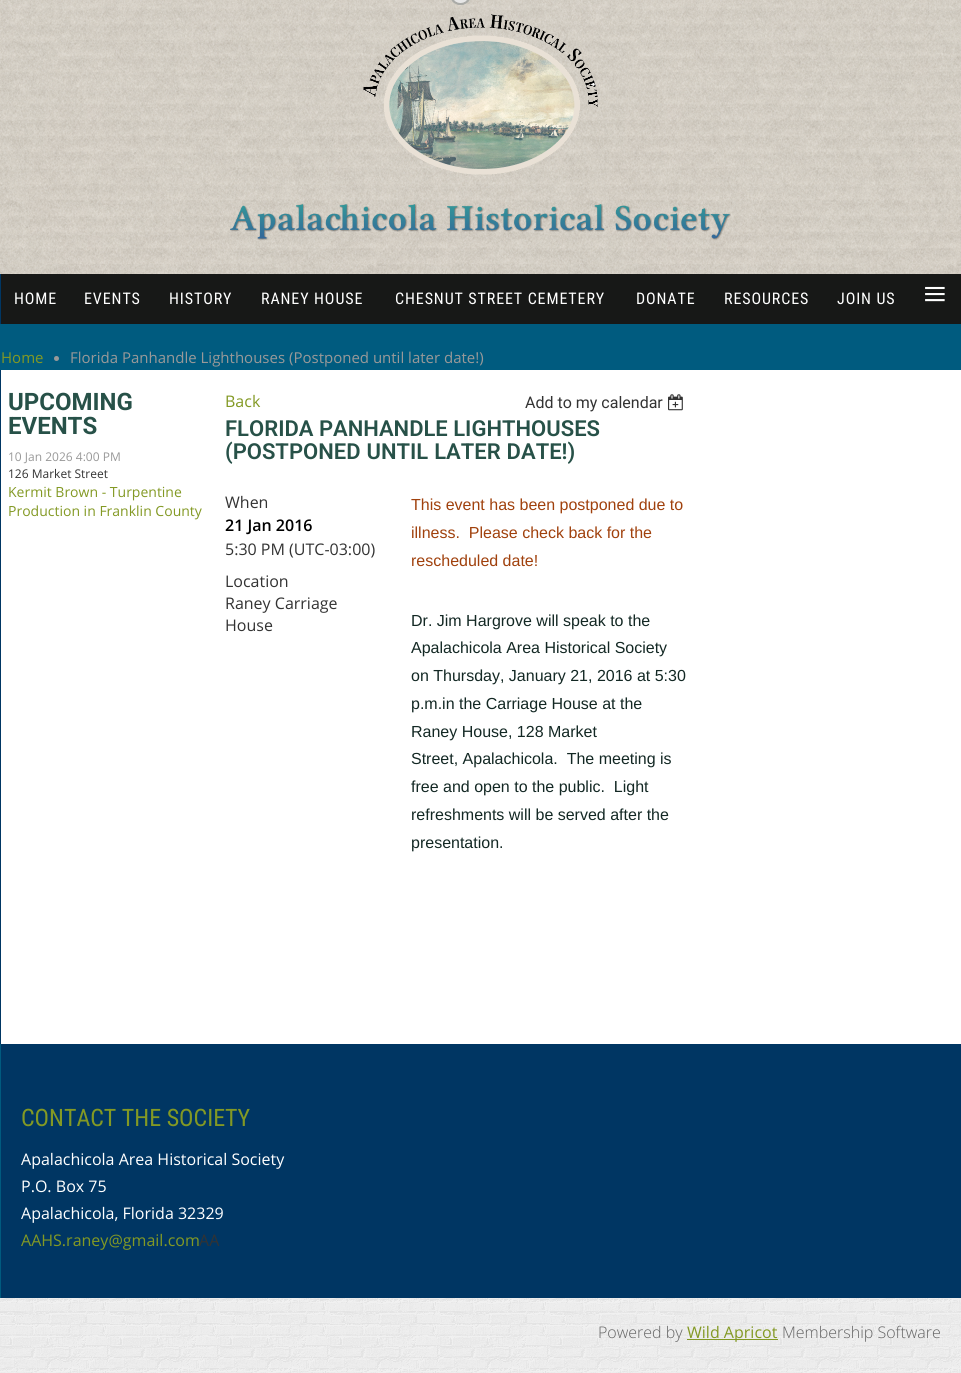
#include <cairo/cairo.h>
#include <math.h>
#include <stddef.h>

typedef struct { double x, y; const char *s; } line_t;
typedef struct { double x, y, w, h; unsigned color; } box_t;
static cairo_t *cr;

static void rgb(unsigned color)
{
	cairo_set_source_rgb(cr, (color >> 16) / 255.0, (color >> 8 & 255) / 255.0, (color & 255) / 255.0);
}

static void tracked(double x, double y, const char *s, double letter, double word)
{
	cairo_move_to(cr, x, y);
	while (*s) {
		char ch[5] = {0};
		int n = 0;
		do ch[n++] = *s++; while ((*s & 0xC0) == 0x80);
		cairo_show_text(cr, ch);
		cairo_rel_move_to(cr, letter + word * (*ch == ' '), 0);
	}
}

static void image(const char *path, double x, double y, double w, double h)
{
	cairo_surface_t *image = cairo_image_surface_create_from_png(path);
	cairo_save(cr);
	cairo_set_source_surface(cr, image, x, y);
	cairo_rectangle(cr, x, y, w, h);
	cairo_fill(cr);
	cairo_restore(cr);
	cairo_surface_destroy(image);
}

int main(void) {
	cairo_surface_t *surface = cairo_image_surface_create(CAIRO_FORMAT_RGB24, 961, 1373);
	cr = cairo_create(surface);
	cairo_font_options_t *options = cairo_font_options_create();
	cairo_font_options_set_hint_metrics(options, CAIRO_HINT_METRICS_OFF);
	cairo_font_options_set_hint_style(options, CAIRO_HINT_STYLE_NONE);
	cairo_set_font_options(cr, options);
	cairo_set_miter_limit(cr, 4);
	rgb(0xffffff);
	cairo_paint(cr);
	image("img/1.png", 0, 1298, 961, 75);
	image("img/2.png", 0, 0, 961, 274);
	image("img/3.png", 451, 0, 19, 5);
	image("img/4.png", 363, 14, 235, 161);
	image("img/5.png", 230, 204, 501, 37);
	{
		static const box_t items[] = {
			{0, 274, 1, 50, 0x003663},
			{1, 274, 960, 50, 0x171817},
			{0, 324, 961, 46, 0x005b7f},
		};
		for (size_t i = 0; i < sizeof items / sizeof *items; i++) {
			rgb(items[i].color);
			cairo_rectangle(cr, items[i].x, items[i].y, items[i].w, items[i].h);
			cairo_fill(cr);
		}
	}
	rgb(0x999999);
	cairo_arc(cr, 56.5, 358.5, 2.5, 0, 2 * M_PI);
	cairo_fill(cr);
	rgb(0x003663);
	cairo_rectangle(cr, 0, 370, 1, 674);
	cairo_fill(cr);
	image("img/6.png", 668, 394, 15, 17);
	{
		static const box_t items[] = {
			{0, 1044, 1, 254, 0x005b7f},
			{1, 1044, 960, 254, 0x003663},
			{687, 1339, 91, 1, 0x839924},
		};
		for (size_t i = 0; i < sizeof items / sizeof *items; i++) {
			rgb(items[i].color);
			cairo_rectangle(cr, items[i].x, items[i].y, items[i].w, items[i].h);
			cairo_fill(cr);
		}
	}
	cairo_select_font_face(cr, "Roboto Condensed", CAIRO_FONT_SLANT_NORMAL, CAIRO_FONT_WEIGHT_NORMAL);
	cairo_set_font_size(cr, 16);
	rgb(0xffffff);
	{
		static const line_t items[] = {
			{14, 304, "HOME"},
			{84, 304, "EVENTS"},
			{169, 304, "HISTORY"},
			{261, 304, "RANEY HOUSE"},
			{395, 304, "CHESNUT STREET CEMETERY"},
			{636, 304, "DONATE"},
			{724, 304, "RESOURCES"},
			{837, 304, "JOIN US"},
		};
		for (size_t i = 0; i < sizeof items / sizeof *items; i++) {
			tracked(items[i].x, items[i].y, items[i].s, 0.9, 0);
		}
	}
	cairo_select_font_face(cr, "Liberation Serif", CAIRO_FONT_SLANT_NORMAL, CAIRO_FONT_WEIGHT_NORMAL);
	cairo_set_font_size(cr, 42);
	tracked(923, 308, "≡", 0.9, 0);
	cairo_select_font_face(cr, "Open Sans", CAIRO_FONT_SLANT_NORMAL, CAIRO_FONT_WEIGHT_NORMAL);
	cairo_set_font_size(cr, 15);
	rgb(0x839924);
	cairo_move_to(cr, 1, 363);
	cairo_show_text(cr, "Home");
	rgb(0x999999);
	cairo_move_to(cr, 70, 363);
	cairo_show_text(cr, "Florida Panhandle Lighthouses (Postponed until later date!)");
	cairo_select_font_face(cr, "Roboto", CAIRO_FONT_SLANT_NORMAL, CAIRO_FONT_WEIGHT_BOLD);
	cairo_set_font_size(cr, 24);
	rgb(0x275148);
	cairo_move_to(cr, 8, 410);
	cairo_show_text(cr, "UPCOMING");
	cairo_move_to(cr, 8, 434);
	cairo_show_text(cr, "EVENTS");
	cairo_select_font_face(cr, "Open Sans", CAIRO_FONT_SLANT_NORMAL, CAIRO_FONT_WEIGHT_NORMAL);
	cairo_set_font_size(cr, 12);
	rgb(0x999999);
	cairo_move_to(cr, 8, 461);
	cairo_show_text(cr, "10 Jan 2026 4:00 PM");
	rgb(0x333333);
	cairo_move_to(cr, 8, 478);
	cairo_show_text(cr, "126 Market Street");
	cairo_set_font_size(cr, 14);
	rgb(0x839924);
	cairo_move_to(cr, 8, 497);
	cairo_show_text(cr, "Kermit Brown - Turpentine");
	cairo_move_to(cr, 8, 516);
	cairo_show_text(cr, "Production in Franklin County");
	cairo_set_font_size(cr, 16);
	cairo_move_to(cr, 225, 407);
	cairo_show_text(cr, "Back");
	cairo_select_font_face(cr, "Roboto", CAIRO_FONT_SLANT_NORMAL, CAIRO_FONT_WEIGHT_NORMAL);
	rgb(0x333333);
	cairo_move_to(cr, 525, 408);
	cairo_show_text(cr, "Add to my calendar");
	cairo_select_font_face(cr, "Roboto SemiBold", CAIRO_FONT_SLANT_NORMAL, CAIRO_FONT_WEIGHT_NORMAL);
	cairo_set_font_size(cr, 22);
	rgb(0x275148);
	cairo_move_to(cr, 225, 436);
	cairo_show_text(cr, "FLORIDA PANHANDLE LIGHTHOUSES");
	tracked(225, 459, "(POSTPONED UNTIL LATER DATE!)", 0, 0.5);
	cairo_select_font_face(cr, "Open Sans", CAIRO_FONT_SLANT_NORMAL, CAIRO_FONT_WEIGHT_NORMAL);
	cairo_set_font_size(cr, 16);
	rgb(0x333333);
	cairo_move_to(cr, 225, 508);
	cairo_show_text(cr, "When");
	cairo_select_font_face(cr, "Open Sans SemiBold", CAIRO_FONT_SLANT_NORMAL, CAIRO_FONT_WEIGHT_NORMAL);
	rgb(0x000000);
	cairo_move_to(cr, 225, 531);
	cairo_show_text(cr, "21 Jan 2016");
	cairo_select_font_face(cr, "Open Sans", CAIRO_FONT_SLANT_NORMAL, CAIRO_FONT_WEIGHT_NORMAL);
	rgb(0x333333);
	{
		static const line_t items[] = {
			{225, 555, "5:30 PM (UTC-03:00)"},
			{225, 587, "Location"},
			{225, 609, "Raney Carriage"},
			{225, 631, "House"},
		};
		for (size_t i = 0; i < sizeof items / sizeof *items; i++) {
			cairo_move_to(cr, items[i].x, items[i].y);
			cairo_show_text(cr, items[i].s);
		}
	}
	cairo_select_font_face(cr, "Liberation Sans", CAIRO_FONT_SLANT_NORMAL, CAIRO_FONT_WEIGHT_NORMAL);
	rgb(0xa0410d);
	{
		static const line_t items[] = {
			{411, 510, "This event has been postponed due to"},
			{411, 538, "illness.  Please check back for the"},
			{411, 566, "rescheduled date!"},
		};
		for (size_t i = 0; i < sizeof items / sizeof *items; i++) {
			cairo_move_to(cr, items[i].x, items[i].y);
			cairo_show_text(cr, items[i].s);
		}
	}
	rgb(0x132824);
	{
		static const line_t items[] = {
			{411, 626, "Dr. Jim Hargrove will speak to the"},
			{411, 653, "Apalachicola Area Historical Society"},
			{411, 681, "on Thursday, January 21, 2016 at 5:30"},
			{411, 709, "p.m.in the Carriage House at the"},
			{411, 737, "Raney House, 128 Market"},
			{411, 764, "Street, Apalachicola.  The meeting is"},
		};
		for (size_t i = 0; i < sizeof items / sizeof *items; i++) {
			cairo_move_to(cr, items[i].x, items[i].y);
			cairo_show_text(cr, items[i].s);
		}
	}
	rgb(0xffffff);
	cairo_rectangle(cr, 553, 763, 1, 1);
	cairo_fill(cr);
	rgb(0x132824);
	{
		static const line_t items[] = {
			{411, 792, "free and open to the public.  Light"},
			{411, 820, "refreshments will be served after the"},
			{411, 848, "presentation."},
		};
		for (size_t i = 0; i < sizeof items / sizeof *items; i++) {
			cairo_move_to(cr, items[i].x, items[i].y);
			cairo_show_text(cr, items[i].s);
		}
	}
	cairo_select_font_face(cr, "Roboto Condensed", CAIRO_FONT_SLANT_NORMAL, CAIRO_FONT_WEIGHT_NORMAL);
	cairo_set_font_size(cr, 24);
	rgb(0x839924);
	cairo_move_to(cr, 21, 1126);
	cairo_show_text(cr, "CONTACT THE SOCIETY");
	cairo_select_font_face(cr, "Open Sans", CAIRO_FONT_SLANT_NORMAL, CAIRO_FONT_WEIGHT_NORMAL);
	cairo_set_font_size(cr, 16);
	rgb(0xffffff);
	{
		static const line_t items[] = {
			{21, 1165, "Apalachicola Area Historical Society"},
			{21, 1192, "P.O. Box 75"},
			{21, 1219, "Apalachicola, Florida 32329"},
		};
		for (size_t i = 0; i < sizeof items / sizeof *items; i++) {
			cairo_move_to(cr, items[i].x, items[i].y);
			cairo_show_text(cr, items[i].s);
		}
	}
	rgb(0x839924);
	cairo_move_to(cr, 21, 1246);
	cairo_show_text(cr, "AAHS.raney@gmail.com");
	rgb(0x333333);
	cairo_move_to(cr, 199, 1246);
	cairo_show_text(cr, "AA");
	cairo_select_font_face(cr, "Open Sans Light", CAIRO_FONT_SLANT_NORMAL, CAIRO_FONT_WEIGHT_NORMAL);
	rgb(0x646464);
	cairo_move_to(cr, 598, 1338);
	cairo_show_text(cr, "Powered by");
	cairo_select_font_face(cr, "Open Sans", CAIRO_FONT_SLANT_NORMAL, CAIRO_FONT_WEIGHT_NORMAL);
	rgb(0x839924);
	cairo_move_to(cr, 687, 1338);
	cairo_show_text(cr, "Wild Apricot");
	cairo_select_font_face(cr, "Open Sans Light", CAIRO_FONT_SLANT_NORMAL, CAIRO_FONT_WEIGHT_NORMAL);
	rgb(0x646464);
	cairo_move_to(cr, 782, 1338);
	cairo_show_text(cr, "Membership Software");
	cairo_surface_write_to_png(surface, "page.png");
	cairo_font_options_destroy(options);
	cairo_destroy(cr);
	cairo_surface_destroy(surface);
	return 0;
}
